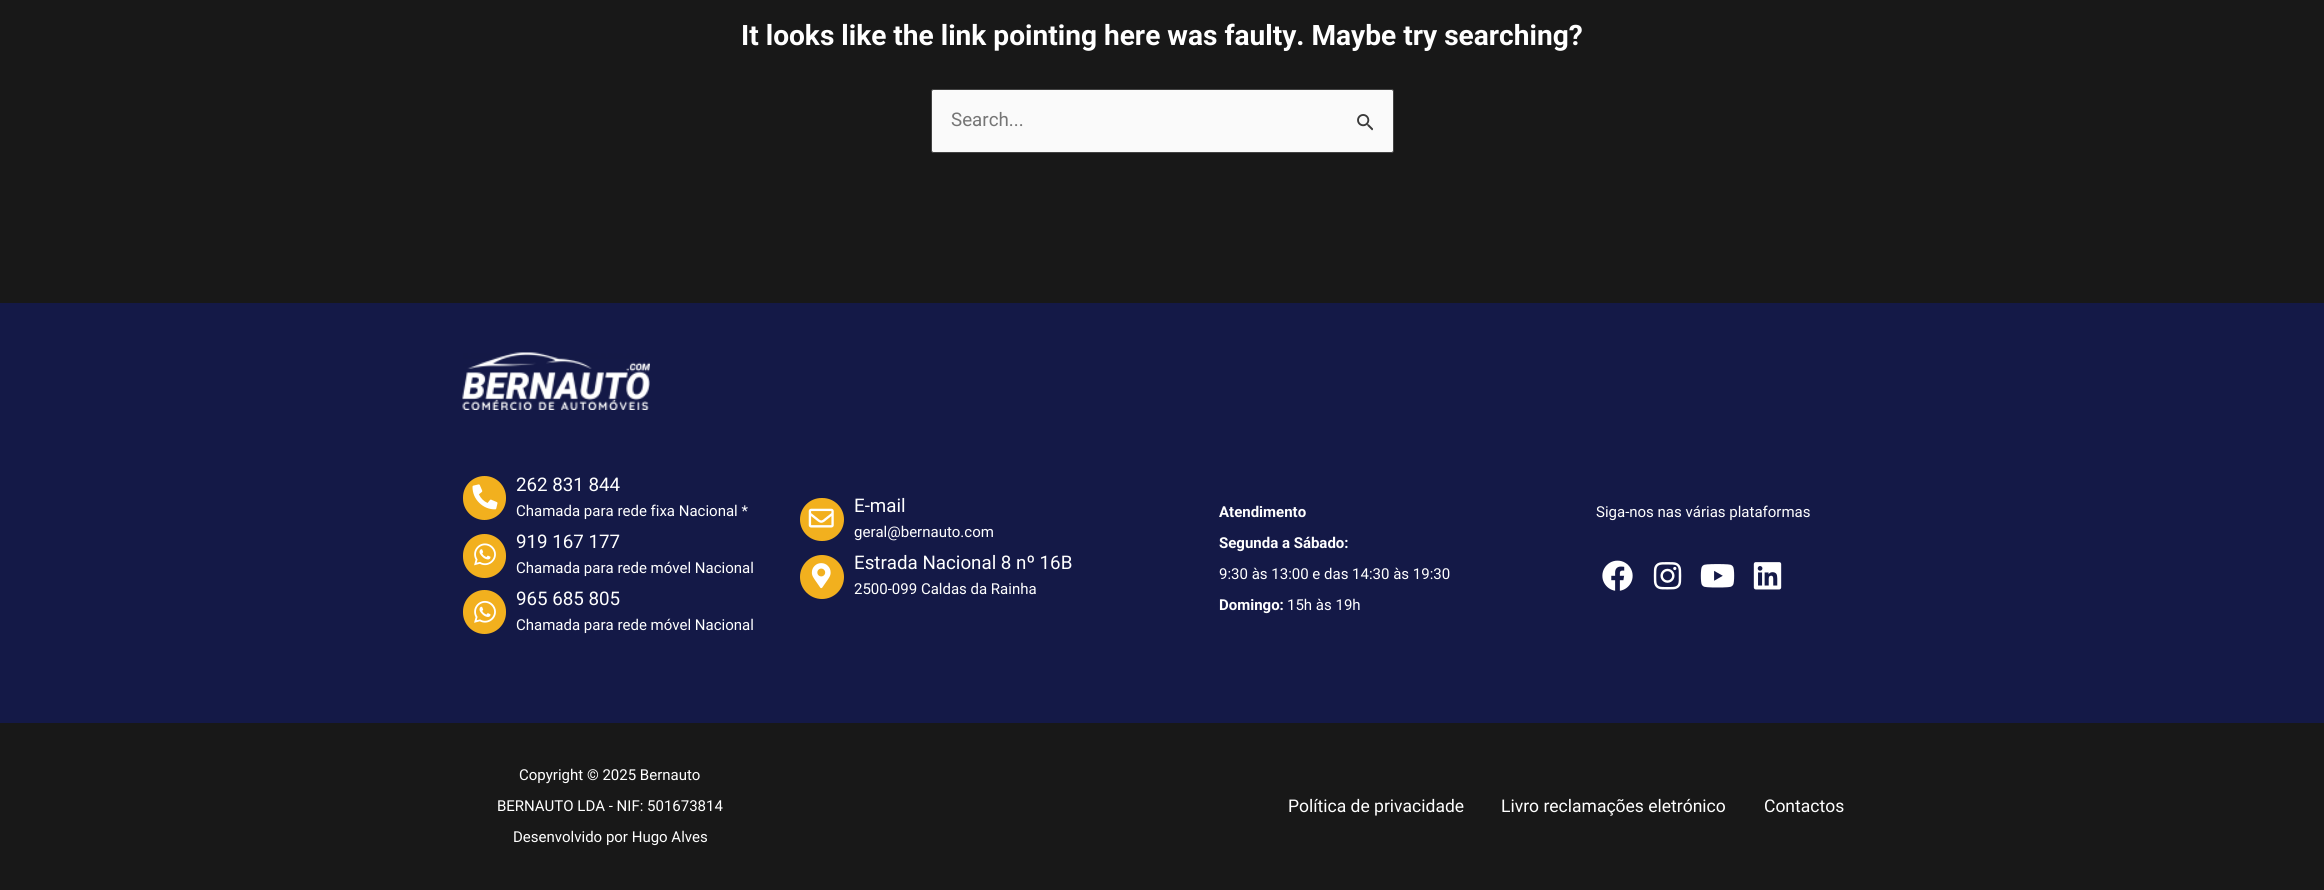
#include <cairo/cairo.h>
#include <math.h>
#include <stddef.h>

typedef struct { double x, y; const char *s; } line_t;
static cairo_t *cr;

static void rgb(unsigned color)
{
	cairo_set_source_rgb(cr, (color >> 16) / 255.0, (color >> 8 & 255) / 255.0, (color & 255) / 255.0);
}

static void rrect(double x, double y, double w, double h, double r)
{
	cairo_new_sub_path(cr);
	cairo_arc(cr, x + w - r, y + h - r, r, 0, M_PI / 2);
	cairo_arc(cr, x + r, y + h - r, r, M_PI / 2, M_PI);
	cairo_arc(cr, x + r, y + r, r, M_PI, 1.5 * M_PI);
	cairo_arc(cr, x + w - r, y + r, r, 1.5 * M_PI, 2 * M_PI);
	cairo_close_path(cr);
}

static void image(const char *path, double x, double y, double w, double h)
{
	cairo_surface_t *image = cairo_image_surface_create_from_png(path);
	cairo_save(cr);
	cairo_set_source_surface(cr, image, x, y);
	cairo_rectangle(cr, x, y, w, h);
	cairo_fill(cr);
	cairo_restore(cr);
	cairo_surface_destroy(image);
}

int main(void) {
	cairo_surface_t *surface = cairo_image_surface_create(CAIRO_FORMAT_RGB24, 2324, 890);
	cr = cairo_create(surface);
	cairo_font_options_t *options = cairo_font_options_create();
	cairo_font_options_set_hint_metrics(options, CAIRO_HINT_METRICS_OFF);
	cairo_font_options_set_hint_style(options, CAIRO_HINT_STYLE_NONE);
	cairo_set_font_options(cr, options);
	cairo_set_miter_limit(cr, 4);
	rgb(0x181818);
	cairo_paint(cr);
	rgb(0xfafafa);
	rrect(931.5, 89.5, 462, 63, 2);
	cairo_fill_preserve(cr);
	rgb(0x424242);
	cairo_set_line_width(cr, 1);
	cairo_stroke(cr);
	image("img/1.png", 1357, 114, 16, 17);
	rgb(0x141947);
	cairo_rectangle(cr, 0, 303, 2324, 420);
	cairo_fill(cr);
	image("img/2.png", 462, 352, 188, 58);
	rgb(0xf2b01e);
	rrect(463, 476, 43, 44, 21.5);
	cairo_fill(cr);
	image("img/3.png", 472, 484, 26, 26);
	rrect(463, 534, 43, 44, 21.5);
	cairo_fill(cr);
	image("img/4.png", 474, 543, 22, 23);
	rrect(463, 590, 43, 44, 21.5);
	cairo_fill(cr);
	image("img/5.png", 474, 600, 22, 23);
	rrect(800, 498, 44, 43, 21.5);
	cairo_fill(cr);
	image("img/6.png", 808, 508, 26, 20);
	cairo_arc(cr, 822, 577, 22, 0, 2 * M_PI);
	cairo_fill(cr);
	image("img/7.png", 811, 563, 20, 26);
	image("img/8.png", 1602, 560, 31, 31);
	image("img/9.png", 1653, 562, 29, 28);
	image("img/10.png", 1700, 564, 35, 24);
	image("img/11.png", 1753, 562, 29, 28);
	cairo_select_font_face(cr, "Roboto", CAIRO_FONT_SLANT_NORMAL, CAIRO_FONT_WEIGHT_BOLD);
	cairo_set_font_size(cr, 28.1);
	rgb(0xffffff);
	cairo_move_to(cr, 741, 45);
	cairo_show_text(cr, "It looks like the link pointing here was faulty. Maybe try searching?");
	cairo_select_font_face(cr, "Roboto", CAIRO_FONT_SLANT_NORMAL, CAIRO_FONT_WEIGHT_NORMAL);
	cairo_set_font_size(cr, 18.75);
	rgb(0x757575);
	cairo_move_to(cr, 951, 126);
	cairo_show_text(cr, "Search...");
	rgb(0xffffff);
	cairo_move_to(cr, 516, 491);
	cairo_show_text(cr, "262 831 844");
	cairo_set_font_size(cr, 15);
	cairo_move_to(cr, 516, 516);
	cairo_show_text(cr, "Chamada para rede fixa Nacional *");
	cairo_set_font_size(cr, 18.75);
	cairo_move_to(cr, 516, 548);
	cairo_show_text(cr, "919 167 177");
	cairo_set_font_size(cr, 15);
	cairo_move_to(cr, 516, 573);
	cairo_show_text(cr, "Chamada para rede móvel Nacional");
	cairo_set_font_size(cr, 18.75);
	cairo_move_to(cr, 516, 605);
	cairo_show_text(cr, "965 685 805");
	cairo_set_font_size(cr, 15);
	cairo_move_to(cr, 516, 630);
	cairo_show_text(cr, "Chamada para rede móvel Nacional");
	cairo_set_font_size(cr, 18.75);
	cairo_move_to(cr, 854, 512);
	cairo_show_text(cr, "E-mail");
	cairo_set_font_size(cr, 15);
	cairo_move_to(cr, 854, 537);
	cairo_show_text(cr, "geral@bernauto.com");
	cairo_set_font_size(cr, 18.75);
	cairo_move_to(cr, 854, 569);
	cairo_show_text(cr, "Estrada Nacional 8 nº 16B");
	cairo_set_font_size(cr, 15);
	cairo_move_to(cr, 854, 594);
	cairo_show_text(cr, "2500-099 Caldas da Rainha");
	cairo_select_font_face(cr, "Roboto", CAIRO_FONT_SLANT_NORMAL, CAIRO_FONT_WEIGHT_BOLD);
	cairo_move_to(cr, 1219, 517);
	cairo_show_text(cr, "Atendimento");
	cairo_move_to(cr, 1219, 548);
	cairo_show_text(cr, "Segunda a Sábado:");
	cairo_select_font_face(cr, "Roboto", CAIRO_FONT_SLANT_NORMAL, CAIRO_FONT_WEIGHT_NORMAL);
	cairo_move_to(cr, 1219, 579);
	cairo_show_text(cr, "9:30 às 13:00 e das 14:30 às 19:30");
	cairo_select_font_face(cr, "Roboto", CAIRO_FONT_SLANT_NORMAL, CAIRO_FONT_WEIGHT_BOLD);
	cairo_move_to(cr, 1219, 610);
	cairo_show_text(cr, "Domingo:");
	cairo_select_font_face(cr, "Roboto", CAIRO_FONT_SLANT_NORMAL, CAIRO_FONT_WEIGHT_NORMAL);
	{
		static const line_t items[] = {
			{1287, 610, "15h às 19h"},
			{1596, 517, "Siga-nos nas várias plataformas"},
			{519, 780, "Copyright © 2025 Bernauto"},
			{497, 811, "BERNAUTO LDA - NIF: 501673814"},
			{513, 842, "Desenvolvido por Hugo Alves"},
		};
		for (size_t i = 0; i < sizeof items / sizeof *items; i++) {
			cairo_move_to(cr, items[i].x, items[i].y);
			cairo_show_text(cr, items[i].s);
		}
	}
	cairo_set_font_size(cr, 17.5);
	{
		static const line_t items[] = {
			{1288, 812, "Política de privacidade"},
			{1501, 812, "Livro reclamações eletrónico"},
			{1764, 812, "Contactos"},
		};
		for (size_t i = 0; i < sizeof items / sizeof *items; i++) {
			cairo_move_to(cr, items[i].x, items[i].y);
			cairo_show_text(cr, items[i].s);
		}
	}
	cairo_surface_write_to_png(surface, "page.png");
	cairo_font_options_destroy(options);
	cairo_destroy(cr);
	cairo_surface_destroy(surface);
	return 0;
}
